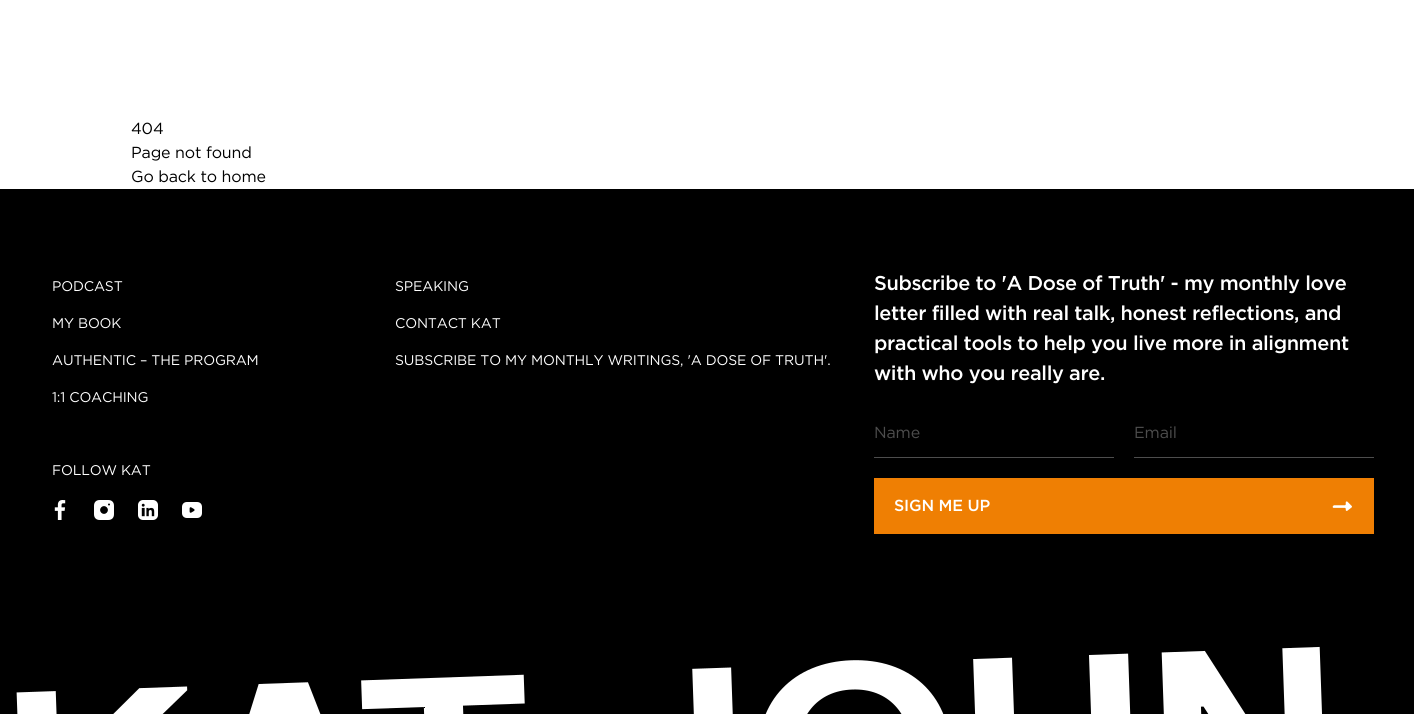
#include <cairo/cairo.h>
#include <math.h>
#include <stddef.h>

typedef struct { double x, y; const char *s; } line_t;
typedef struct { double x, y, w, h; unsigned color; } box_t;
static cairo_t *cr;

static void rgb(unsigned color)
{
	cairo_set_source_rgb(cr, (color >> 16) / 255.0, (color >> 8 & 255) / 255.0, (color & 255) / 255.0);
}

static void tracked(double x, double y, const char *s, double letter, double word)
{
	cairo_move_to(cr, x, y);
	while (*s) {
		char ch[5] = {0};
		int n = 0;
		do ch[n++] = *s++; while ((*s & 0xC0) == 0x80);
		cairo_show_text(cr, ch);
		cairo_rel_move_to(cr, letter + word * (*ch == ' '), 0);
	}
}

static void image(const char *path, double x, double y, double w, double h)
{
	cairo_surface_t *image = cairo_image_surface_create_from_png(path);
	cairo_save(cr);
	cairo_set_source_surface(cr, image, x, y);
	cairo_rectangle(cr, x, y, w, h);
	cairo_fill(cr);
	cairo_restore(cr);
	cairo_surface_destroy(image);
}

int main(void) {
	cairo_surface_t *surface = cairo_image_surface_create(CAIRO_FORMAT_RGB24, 1414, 714);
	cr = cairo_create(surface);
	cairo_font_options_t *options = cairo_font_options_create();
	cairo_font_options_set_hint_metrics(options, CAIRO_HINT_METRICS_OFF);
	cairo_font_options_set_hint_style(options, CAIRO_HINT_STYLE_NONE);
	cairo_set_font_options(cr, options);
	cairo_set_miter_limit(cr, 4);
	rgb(0xffffff);
	cairo_paint(cr);
	rgb(0x000000);
	cairo_rectangle(cr, 0, 189, 1414, 525);
	cairo_fill(cr);
	image("img/1.png", 54, 500, 12, 20);
	image("img/2.png", 94, 500, 20, 20);
	image("img/3.png", 138, 500, 20, 20);
	image("img/4.png", 182, 502, 20, 16);
	{
		static const box_t items[] = {
			{874, 457, 240, 1, 0x4d4d4d},
			{1134, 457, 240, 1, 0x4d4d4d},
			{874, 478, 500, 56, 0xef7f03},
		};
		for (size_t i = 0; i < sizeof items / sizeof *items; i++) {
			rgb(items[i].color);
			cairo_rectangle(cr, items[i].x, items[i].y, items[i].w, items[i].h);
			cairo_fill(cr);
		}
	}
	image("img/5.png", 1332, 501, 20, 10);
	image("img/6.png", 16, 646, 1306, 68);
	cairo_select_font_face(cr, "Gotham", CAIRO_FONT_SLANT_NORMAL, CAIRO_FONT_WEIGHT_NORMAL);
	cairo_set_font_size(cr, 16);
	rgb(0x000000);
	{
		static const line_t items[] = {
			{131, 134, "404"},
			{131, 158, "Page not found"},
			{131, 182, "Go back to home"},
		};
		for (size_t i = 0; i < sizeof items / sizeof *items; i++) {
			tracked(items[i].x, items[i].y, items[i].s, -0.15, 0);
		}
	}
	cairo_set_font_size(cr, 14);
	rgb(0xffffff);
	{
		static const line_t items[] = {
			{52, 291, "PODCAST"},
			{52, 328, "MY BOOK"},
			{52, 365, "AUTHENTIC – THE PROGRAM"},
			{52, 402, "1:1 COACHING"},
			{395, 291, "SPEAKING"},
			{395, 328, "CONTACT KAT"},
			{395, 365, "SUBSCRIBE TO MY MONTHLY WRITINGS, 'A DOSE OF TRUTH'."},
			{52, 475, "FOLLOW KAT"},
		};
		for (size_t i = 0; i < sizeof items / sizeof *items; i++) {
			tracked(items[i].x, items[i].y, items[i].s, -0.15, 0);
		}
	}
	cairo_select_font_face(cr, "Gotham Medium", CAIRO_FONT_SLANT_NORMAL, CAIRO_FONT_WEIGHT_NORMAL);
	cairo_set_font_size(cr, 20);
	{
		static const line_t items[] = {
			{874, 290, "Subscribe to 'A Dose of Truth' - my monthly love"},
			{874, 320, "letter filled with real talk, honest reflections, and"},
			{874, 350, "practical tools to help you live more in alignment"},
			{874, 380, "with who you really are."},
		};
		for (size_t i = 0; i < sizeof items / sizeof *items; i++) {
			tracked(items[i].x, items[i].y, items[i].s, -0.4, 0);
		}
	}
	cairo_select_font_face(cr, "Gotham", CAIRO_FONT_SLANT_NORMAL, CAIRO_FONT_WEIGHT_NORMAL);
	cairo_set_font_size(cr, 16);
	rgb(0x4d4d4d);
	tracked(874, 438, "Name", -0.15, 0);
	tracked(1134, 438, "Email", -0.15, 0);
	cairo_select_font_face(cr, "Gotham Medium", CAIRO_FONT_SLANT_NORMAL, CAIRO_FONT_WEIGHT_NORMAL);
	rgb(0xffffff);
	tracked(894, 511, "SIGN ME UP", -0.15, 0);
	cairo_surface_write_to_png(surface, "page.png");
	cairo_font_options_destroy(options);
	cairo_destroy(cr);
	cairo_surface_destroy(surface);
	return 0;
}
